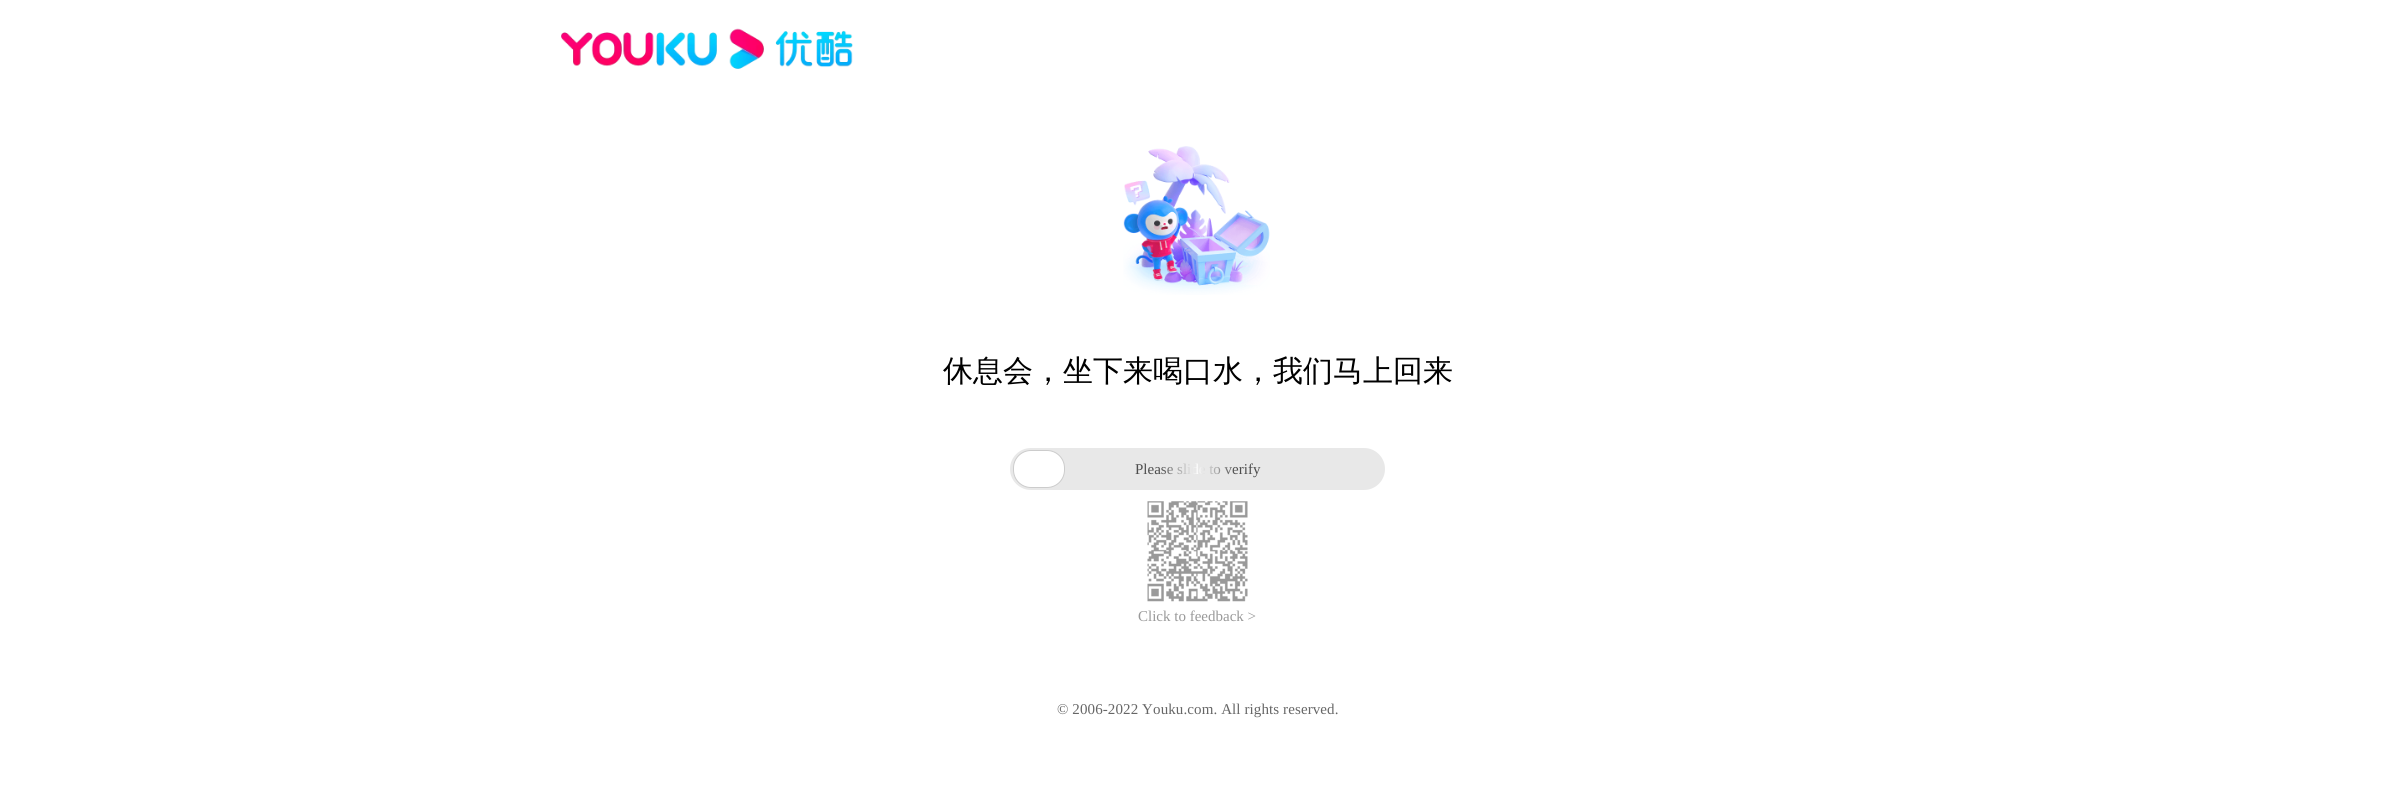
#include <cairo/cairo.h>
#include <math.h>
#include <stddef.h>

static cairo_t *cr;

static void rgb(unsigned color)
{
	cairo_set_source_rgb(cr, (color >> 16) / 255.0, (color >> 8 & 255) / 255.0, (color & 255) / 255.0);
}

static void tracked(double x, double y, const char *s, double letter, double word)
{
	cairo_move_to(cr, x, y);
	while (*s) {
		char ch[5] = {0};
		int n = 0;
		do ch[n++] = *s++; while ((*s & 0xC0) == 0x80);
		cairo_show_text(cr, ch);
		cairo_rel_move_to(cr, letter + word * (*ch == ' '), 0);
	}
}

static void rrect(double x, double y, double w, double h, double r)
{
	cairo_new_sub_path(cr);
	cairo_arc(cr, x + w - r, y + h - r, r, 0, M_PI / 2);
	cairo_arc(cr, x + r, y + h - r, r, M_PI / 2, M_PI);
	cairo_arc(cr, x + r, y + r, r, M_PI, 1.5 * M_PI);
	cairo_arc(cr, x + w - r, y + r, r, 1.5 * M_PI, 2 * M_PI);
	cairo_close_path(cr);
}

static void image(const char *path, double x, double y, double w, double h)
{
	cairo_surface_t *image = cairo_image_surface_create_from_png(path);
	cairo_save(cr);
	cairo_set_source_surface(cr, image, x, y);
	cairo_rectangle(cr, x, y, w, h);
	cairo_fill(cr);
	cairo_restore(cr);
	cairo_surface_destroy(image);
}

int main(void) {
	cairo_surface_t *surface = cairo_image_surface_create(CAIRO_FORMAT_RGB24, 2394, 785);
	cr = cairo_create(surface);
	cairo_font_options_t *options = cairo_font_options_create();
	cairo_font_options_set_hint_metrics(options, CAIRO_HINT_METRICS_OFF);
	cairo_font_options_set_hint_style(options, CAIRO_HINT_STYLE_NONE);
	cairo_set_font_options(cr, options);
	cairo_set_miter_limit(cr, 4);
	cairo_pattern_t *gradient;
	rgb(0xffffff);
	cairo_paint(cr);
	image("img/1.png", 561, 28, 292, 41);
	image("img/2.png", 1123, 146, 147, 149);
	rgb(0xe8e8e8);
	rrect(1010, 448, 375, 42, 21);
	cairo_fill(cr);
	rgb(0xffffff);
	rrect(1013.5, 450.5, 51, 37, 17.5);
	cairo_fill_preserve(cr);
	rgb(0xcccccc);
	cairo_set_line_width(cr, 1);
	cairo_stroke(cr);
	image("img/3.png", 1147, 501, 101, 101);
	cairo_select_font_face(cr, "WenQuanYi Zen Hei Medium", CAIRO_FONT_SLANT_NORMAL, CAIRO_FONT_WEIGHT_NORMAL);
	cairo_set_font_size(cr, 30);
	rgb(0x000000);
	cairo_move_to(cr, 943, 381);
	cairo_show_text(cr, "休息会，坐下来喝口水，我们马上回来");
	cairo_select_font_face(cr, "Liberation Serif", CAIRO_FONT_SLANT_NORMAL, CAIRO_FONT_WEIGHT_NORMAL);
	cairo_set_font_size(cr, 15);
	gradient = cairo_pattern_create_linear(1010, 448, 1385, 448);
	cairo_pattern_add_color_stop_rgba(gradient, 0, 0.302, 0.302, 0.302, 1);
	cairo_pattern_add_color_stop_rgba(gradient, 0.4, 0.302, 0.302, 0.302, 1);
	cairo_pattern_add_color_stop_rgba(gradient, 0.5, 1, 1, 1, 1);
	cairo_pattern_add_color_stop_rgba(gradient, 0.6, 0.302, 0.302, 0.302, 1);
	cairo_pattern_add_color_stop_rgba(gradient, 1, 0.302, 0.302, 0.302, 1);
	cairo_set_source(cr, gradient);
	cairo_pattern_destroy(gradient);
	cairo_move_to(cr, 1135, 474);
	cairo_show_text(cr, "Please slide to verify");
	rgb(0x999999);
	cairo_move_to(cr, 1138, 621);
	cairo_show_text(cr, "Click to feedback >");
	rgb(0x666666);
	tracked(1057, 714, "© 2006-2022 Youku.com. All rights reserved.", 0.1, 0);
	cairo_surface_write_to_png(surface, "page.png");
	cairo_font_options_destroy(options);
	cairo_destroy(cr);
	cairo_surface_destroy(surface);
	return 0;
}
